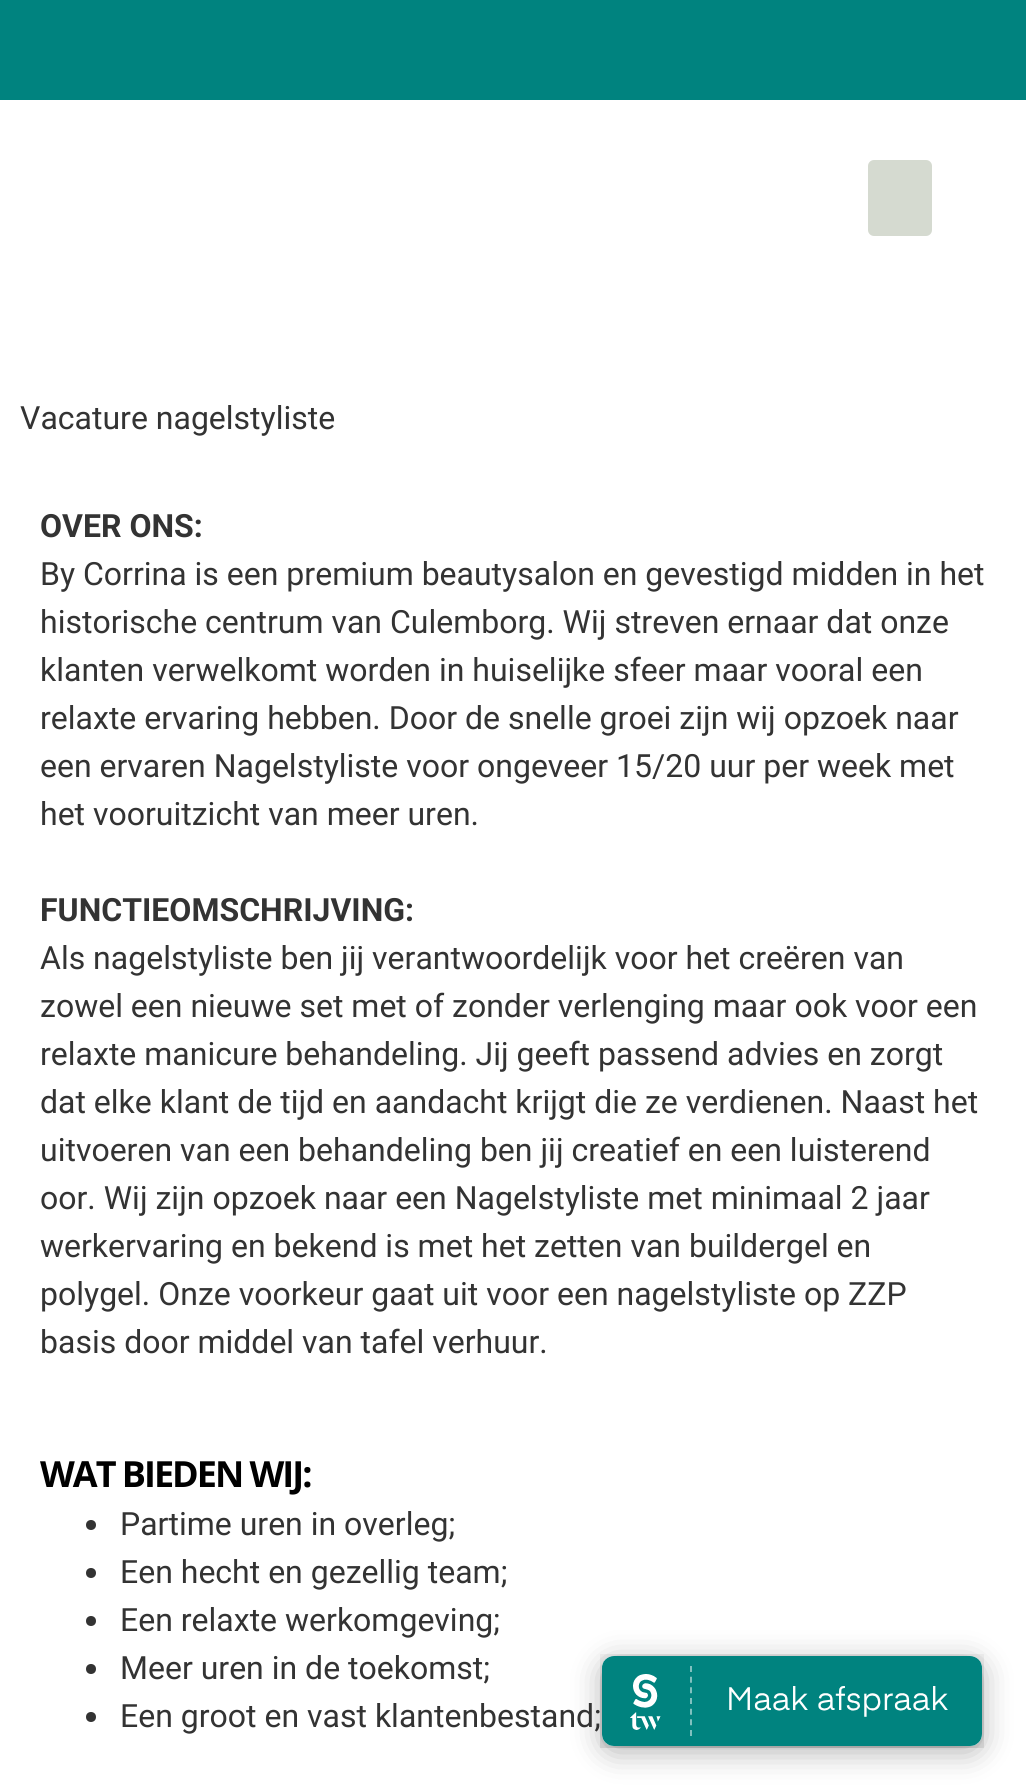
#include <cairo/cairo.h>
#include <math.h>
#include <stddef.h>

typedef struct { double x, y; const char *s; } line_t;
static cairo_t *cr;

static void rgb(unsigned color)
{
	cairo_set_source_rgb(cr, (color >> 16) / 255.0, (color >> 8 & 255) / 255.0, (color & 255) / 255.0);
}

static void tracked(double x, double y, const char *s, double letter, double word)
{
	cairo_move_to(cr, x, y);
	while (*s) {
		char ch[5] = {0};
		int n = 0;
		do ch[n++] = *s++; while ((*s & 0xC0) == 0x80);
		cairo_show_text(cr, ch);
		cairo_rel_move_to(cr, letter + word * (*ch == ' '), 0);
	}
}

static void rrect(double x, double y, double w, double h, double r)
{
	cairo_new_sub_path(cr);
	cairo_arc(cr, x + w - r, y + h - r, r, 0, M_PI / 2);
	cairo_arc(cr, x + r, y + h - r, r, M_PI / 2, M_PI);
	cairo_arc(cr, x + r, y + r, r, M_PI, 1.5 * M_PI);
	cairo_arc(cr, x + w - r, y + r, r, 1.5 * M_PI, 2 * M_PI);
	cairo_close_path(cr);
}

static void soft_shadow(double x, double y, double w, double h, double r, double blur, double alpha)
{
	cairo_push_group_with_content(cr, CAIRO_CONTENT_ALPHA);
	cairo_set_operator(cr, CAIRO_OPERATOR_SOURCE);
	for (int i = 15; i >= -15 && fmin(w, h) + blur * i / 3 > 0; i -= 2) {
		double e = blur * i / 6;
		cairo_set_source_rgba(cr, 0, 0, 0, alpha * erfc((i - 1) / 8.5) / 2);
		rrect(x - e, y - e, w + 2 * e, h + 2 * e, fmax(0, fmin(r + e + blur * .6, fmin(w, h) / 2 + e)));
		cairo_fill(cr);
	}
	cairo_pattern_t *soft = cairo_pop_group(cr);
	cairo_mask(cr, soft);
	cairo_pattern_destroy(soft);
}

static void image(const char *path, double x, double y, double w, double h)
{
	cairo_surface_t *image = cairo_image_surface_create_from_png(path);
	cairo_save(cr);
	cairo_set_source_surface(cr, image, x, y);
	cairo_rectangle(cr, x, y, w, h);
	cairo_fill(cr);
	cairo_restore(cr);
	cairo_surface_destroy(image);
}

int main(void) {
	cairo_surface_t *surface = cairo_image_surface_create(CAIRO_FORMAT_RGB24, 1026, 1789);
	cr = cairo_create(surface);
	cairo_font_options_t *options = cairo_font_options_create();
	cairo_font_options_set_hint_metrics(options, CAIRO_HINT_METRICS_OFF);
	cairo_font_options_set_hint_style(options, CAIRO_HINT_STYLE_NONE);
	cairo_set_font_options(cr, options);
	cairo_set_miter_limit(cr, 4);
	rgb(0xffffff);
	cairo_paint(cr);
	rgb(0x00837f);
	cairo_rectangle(cr, 0, 0, 1026, 100);
	cairo_fill(cr);
	rgb(0xd5dad0);
	rrect(868, 160, 64, 76, 6);
	cairo_fill(cr);
	rgb(0x333333);
	cairo_arc(cr, 91, 1525, 5, 0, 2 * M_PI);
	cairo_fill(cr);
	cairo_arc(cr, 91, 1573, 5, 0, 2 * M_PI);
	cairo_fill(cr);
	cairo_arc(cr, 91, 1621, 5, 0, 2 * M_PI);
	cairo_fill(cr);
	cairo_arc(cr, 91, 1669, 5, 0, 2 * M_PI);
	cairo_fill(cr);
	cairo_arc(cr, 91, 1717, 5, 0, 2 * M_PI);
	cairo_fill(cr);
	rgb(0x000000);
	soft_shadow(602, 1662, 380, 90, 12, 15, 0.3);
	image("img/1.png", 600, 1654, 384, 94);
	cairo_select_font_face(cr, "Roboto", CAIRO_FONT_SLANT_NORMAL, CAIRO_FONT_WEIGHT_NORMAL);
	cairo_set_font_size(cr, 32);
	rgb(0x333333);
	cairo_move_to(cr, 20, 429);
	cairo_show_text(cr, "Vacature nagelstyliste");
	cairo_select_font_face(cr, "Roboto", CAIRO_FONT_SLANT_NORMAL, CAIRO_FONT_WEIGHT_BOLD);
	cairo_move_to(cr, 40, 537);
	cairo_show_text(cr, "OVER ONS:");
	cairo_select_font_face(cr, "Roboto", CAIRO_FONT_SLANT_NORMAL, CAIRO_FONT_WEIGHT_NORMAL);
	{
		static const line_t items[] = {
			{40, 585, "By Corrina is een premium beautysalon en gevestigd midden in het"},
			{40, 633, "historische centrum van Culemborg. Wij streven ernaar dat onze"},
			{40, 681, "klanten verwelkomt worden in huiselijke sfeer maar vooral een"},
			{40, 729, "relaxte ervaring hebben. Door de snelle groei zijn wij opzoek naar"},
			{40, 777, "een ervaren Nagelstyliste voor ongeveer 15/20 uur per week met"},
			{40, 825, "het vooruitzicht van meer uren."},
		};
		for (size_t i = 0; i < sizeof items / sizeof *items; i++) {
			cairo_move_to(cr, items[i].x, items[i].y);
			cairo_show_text(cr, items[i].s);
		}
	}
	cairo_select_font_face(cr, "Roboto", CAIRO_FONT_SLANT_NORMAL, CAIRO_FONT_WEIGHT_BOLD);
	cairo_move_to(cr, 40, 921);
	cairo_show_text(cr, "FUNCTIEOMSCHRIJVING:");
	cairo_select_font_face(cr, "Roboto", CAIRO_FONT_SLANT_NORMAL, CAIRO_FONT_WEIGHT_NORMAL);
	{
		static const line_t items[] = {
			{40, 969, "Als nagelstyliste ben jij verantwoordelijk voor het creëren van"},
			{40, 1017, "zowel een nieuwe set met of zonder verlenging maar ook voor een"},
			{40, 1065, "relaxte manicure behandeling. Jij geeft passend advies en zorgt"},
			{40, 1113, "dat elke klant de tijd en aandacht krijgt die ze verdienen. Naast het"},
			{40, 1161, "uitvoeren van een behandeling ben jij creatief en een luisterend"},
			{40, 1209, "oor. Wij zijn opzoek naar een Nagelstyliste met minimaal 2 jaar"},
			{40, 1257, "werkervaring en bekend is met het zetten van buildergel en"},
			{40, 1305, "polygel. Onze voorkeur gaat uit voor een nagelstyliste op ZZP"},
			{40, 1353, "basis door middel van tafel verhuur."},
		};
		for (size_t i = 0; i < sizeof items / sizeof *items; i++) {
			cairo_move_to(cr, items[i].x, items[i].y);
			cairo_show_text(cr, items[i].s);
		}
	}
	cairo_select_font_face(cr, "Open Sans", CAIRO_FONT_SLANT_NORMAL, CAIRO_FONT_WEIGHT_BOLD);
	cairo_set_font_size(cr, 36);
	rgb(0x000000);
	tracked(40, 1487, "WAT BIEDEN WIJ:", -2, 0);
	cairo_select_font_face(cr, "Roboto", CAIRO_FONT_SLANT_NORMAL, CAIRO_FONT_WEIGHT_NORMAL);
	cairo_set_font_size(cr, 32);
	rgb(0x333333);
	{
		static const line_t items[] = {
			{120, 1535, "Partime uren in overleg;"},
			{120, 1583, "Een hecht en gezellig team;"},
			{120, 1631, "Een relaxte werkomgeving;"},
			{120, 1679, "Meer uren in de toekomst;"},
			{120, 1727, "Een groot en vast klantenbestand;"},
		};
		for (size_t i = 0; i < sizeof items / sizeof *items; i++) {
			cairo_move_to(cr, items[i].x, items[i].y);
			cairo_show_text(cr, items[i].s);
		}
	}
	cairo_surface_write_to_png(surface, "page.png");
	cairo_font_options_destroy(options);
	cairo_destroy(cr);
	cairo_surface_destroy(surface);
	return 0;
}
